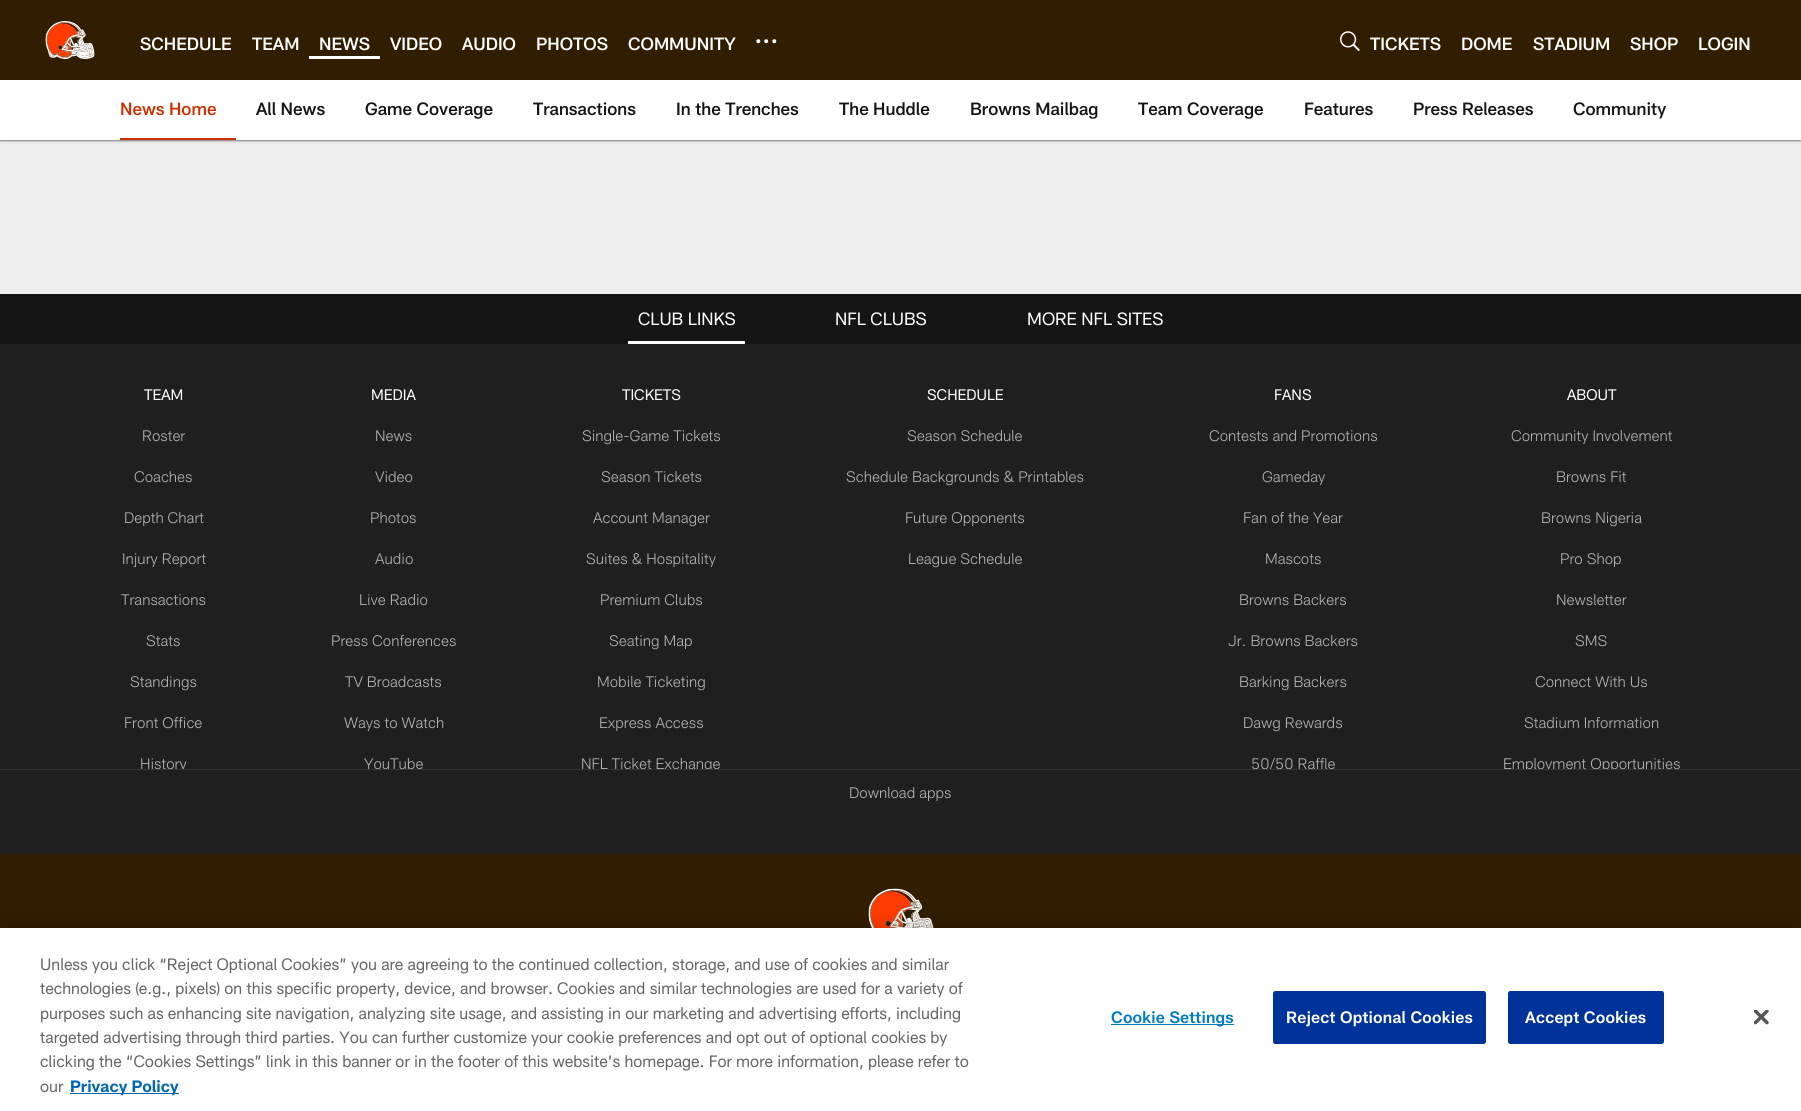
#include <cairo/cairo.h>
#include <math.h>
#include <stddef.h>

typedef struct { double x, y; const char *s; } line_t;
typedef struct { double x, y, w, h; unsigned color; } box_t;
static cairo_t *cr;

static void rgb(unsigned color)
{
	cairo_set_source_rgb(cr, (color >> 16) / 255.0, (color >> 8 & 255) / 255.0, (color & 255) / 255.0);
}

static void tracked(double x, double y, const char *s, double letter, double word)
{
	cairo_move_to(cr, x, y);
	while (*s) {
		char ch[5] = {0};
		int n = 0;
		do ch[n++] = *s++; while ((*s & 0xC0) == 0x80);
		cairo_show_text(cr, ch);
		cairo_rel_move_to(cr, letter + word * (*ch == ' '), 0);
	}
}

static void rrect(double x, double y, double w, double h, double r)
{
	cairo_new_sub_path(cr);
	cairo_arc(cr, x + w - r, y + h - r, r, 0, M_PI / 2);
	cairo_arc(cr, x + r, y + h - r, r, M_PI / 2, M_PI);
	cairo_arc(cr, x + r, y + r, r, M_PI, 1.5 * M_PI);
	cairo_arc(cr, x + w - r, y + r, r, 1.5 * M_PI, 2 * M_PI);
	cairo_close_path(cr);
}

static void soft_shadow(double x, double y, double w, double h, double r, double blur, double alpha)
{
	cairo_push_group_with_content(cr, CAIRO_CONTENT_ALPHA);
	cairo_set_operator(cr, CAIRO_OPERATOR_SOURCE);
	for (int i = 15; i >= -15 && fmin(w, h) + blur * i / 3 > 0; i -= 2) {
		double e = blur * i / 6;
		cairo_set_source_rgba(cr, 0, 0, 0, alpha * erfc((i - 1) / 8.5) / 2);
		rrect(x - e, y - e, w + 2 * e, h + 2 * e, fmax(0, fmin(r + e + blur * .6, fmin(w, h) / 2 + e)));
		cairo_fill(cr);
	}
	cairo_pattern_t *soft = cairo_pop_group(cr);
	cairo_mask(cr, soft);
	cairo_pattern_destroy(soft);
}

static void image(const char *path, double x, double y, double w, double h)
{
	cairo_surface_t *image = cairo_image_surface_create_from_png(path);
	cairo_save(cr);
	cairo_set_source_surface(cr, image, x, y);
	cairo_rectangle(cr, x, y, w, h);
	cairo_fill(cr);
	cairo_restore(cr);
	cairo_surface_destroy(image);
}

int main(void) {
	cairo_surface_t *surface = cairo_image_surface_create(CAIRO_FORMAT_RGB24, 1801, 1111);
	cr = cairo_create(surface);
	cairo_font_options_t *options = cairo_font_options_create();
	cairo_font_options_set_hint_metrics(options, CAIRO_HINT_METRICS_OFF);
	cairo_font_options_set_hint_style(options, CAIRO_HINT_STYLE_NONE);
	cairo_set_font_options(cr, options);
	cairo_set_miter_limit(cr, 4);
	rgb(0xeeeeee);
	cairo_paint(cr);
	rgb(0x311d00);
	cairo_rectangle(cr, 0, 0, 1801, 80);
	cairo_fill(cr);
	image("img/1.png", 45, 21, 50, 38);
	rgb(0xffffff);
	cairo_rectangle(cr, 309, 56, 71, 3);
	cairo_fill(cr);
	cairo_arc(cr, 774.3, 41.2, 2, 0, 2 * M_PI);
	cairo_fill(cr);
	cairo_arc(cr, 766.2, 41.2, 2, 0, 2 * M_PI);
	cairo_fill(cr);
	cairo_arc(cr, 758.3, 41.2, 2, 0, 2 * M_PI);
	cairo_fill(cr);
	image("img/2.png", 1340, 31, 20, 20);
	rgb(0x000000);
	soft_shadow(0, 81, 1801, 60, 0, 1, 0.47);
	{
		static const box_t items[] = {
			{0, 80, 1801, 60, 0xffffff},
			{120, 138, 116, 2, 0xcc2f00},
			{0, 344, 1801, 425, 0x1f1f1f},
			{0, 294, 1801, 50, 0x151515},
			{628, 341, 117, 3, 0xffffff},
			{0, 770, 1801, 84, 0x1f1f1f},
			{0, 769, 1801, 1, 0x333333},
			{0, 854, 1801, 74, 0x311d00},
		};
		for (size_t i = 0; i < sizeof items / sizeof *items; i++) {
			rgb(items[i].color);
			cairo_rectangle(cr, items[i].x, items[i].y, items[i].w, items[i].h);
			cairo_fill(cr);
		}
	}
	image("img/3.png", 868, 888, 66, 40);
	rgb(0x000000);
	soft_shadow(0, 928, 1801, 183, 0, 11, 0.2);
	{
		static const box_t items[] = {
			{0, 928, 1801, 183, 0xffffff},
			{70, 1093, 109, 1, 0x0067b1},
			{1111, 1024, 123, 1, 0x007dc3},
		};
		for (size_t i = 0; i < sizeof items / sizeof *items; i++) {
			rgb(items[i].color);
			cairo_rectangle(cr, items[i].x, items[i].y, items[i].w, items[i].h);
			cairo_fill(cr);
		}
	}
	rgb(0x003399);
	rrect(1273.5, 991.5, 212, 52, 2);
	cairo_fill_preserve(cr);
	cairo_set_line_width(cr, 1);
	cairo_stroke(cr);
	rrect(1508.5, 991.5, 155, 52, 2);
	cairo_fill_preserve(cr);
	cairo_stroke(cr);
	image("img/4.png", 1754, 1010, 15, 15);
	cairo_select_font_face(cr, "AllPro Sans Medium", CAIRO_FONT_SLANT_NORMAL, CAIRO_FONT_WEIGHT_NORMAL);
	cairo_set_font_size(cr, 17.5);
	rgb(0xffffff);
	{
		static const line_t items[] = {
			{140, 50, "SCHEDULE"},
			{252, 50, "TEAM"},
			{319, 50, "NEWS"},
			{390, 50, "VIDEO"},
			{462, 50, "AUDIO"},
			{536, 50, "PHOTOS"},
			{628, 50, "COMMUNITY"},
			{1370, 50, "TICKETS"},
			{1461, 50, "DOME"},
			{1533, 50, "STADIUM"},
			{1630, 50, "SHOP"},
			{1698, 50, "LOGIN"},
		};
		for (size_t i = 0; i < sizeof items / sizeof *items; i++) {
			cairo_move_to(cr, items[i].x, items[i].y);
			cairo_show_text(cr, items[i].s);
		}
	}
	rgb(0xcc2f00);
	cairo_move_to(cr, 120, 115);
	cairo_show_text(cr, "News Home");
	rgb(0x151515);
	{
		static const line_t items[] = {
			{256, 115, "All News"},
			{365, 115, "Game Coverage"},
			{533, 115, "Transactions"},
			{676, 115, "In the Trenches"},
			{839, 115, "The Huddle"},
			{970, 115, "Browns Mailbag"},
			{1138, 115, "Team Coverage"},
			{1304, 115, "Features"},
			{1413, 115, "Press Releases"},
			{1573, 115, "Community"},
		};
		for (size_t i = 0; i < sizeof items / sizeof *items; i++) {
			cairo_move_to(cr, items[i].x, items[i].y);
			cairo_show_text(cr, items[i].s);
		}
	}
	cairo_select_font_face(cr, "AllPro Sans", CAIRO_FONT_SLANT_NORMAL, CAIRO_FONT_WEIGHT_NORMAL);
	rgb(0xffffff);
	{
		static const line_t items[] = {
			{638, 325, "CLUB LINKS"},
			{835, 325, "NFL CLUBS"},
			{1027, 325, "MORE NFL SITES"},
		};
		for (size_t i = 0; i < sizeof items / sizeof *items; i++) {
			cairo_move_to(cr, items[i].x, items[i].y);
			cairo_show_text(cr, items[i].s);
		}
	}
	cairo_set_font_size(cr, 15);
	cairo_move_to(cr, 144, 400);
	cairo_show_text(cr, "TEAM");
	cairo_select_font_face(cr, "AllPro Sans Light", CAIRO_FONT_SLANT_NORMAL, CAIRO_FONT_WEIGHT_NORMAL);
	rgb(0xb2b2b2);
	{
		static const line_t items[] = {
			{142, 441, "Roster"},
			{134, 482, "Coaches"},
			{124, 523, "Depth Chart"},
			{122, 564, "Injury Report"},
			{121, 605, "Transactions"},
			{146, 646, "Stats"},
			{130, 687, "Standings"},
			{124, 728, "Front Office"},
		};
		for (size_t i = 0; i < sizeof items / sizeof *items; i++) {
			cairo_move_to(cr, items[i].x, items[i].y);
			cairo_show_text(cr, items[i].s);
		}
	}
	cairo_save(cr);
	cairo_rectangle(cr, 0, 294, 1801, 475);
	cairo_clip(cr);
	cairo_move_to(cr, 140, 769);
	cairo_show_text(cr, "History");
	cairo_restore(cr);
	cairo_select_font_face(cr, "AllPro Sans", CAIRO_FONT_SLANT_NORMAL, CAIRO_FONT_WEIGHT_NORMAL);
	rgb(0xffffff);
	cairo_move_to(cr, 371, 400);
	cairo_show_text(cr, "MEDIA");
	cairo_select_font_face(cr, "AllPro Sans Light", CAIRO_FONT_SLANT_NORMAL, CAIRO_FONT_WEIGHT_NORMAL);
	rgb(0xb2b2b2);
	{
		static const line_t items[] = {
			{375, 441, "News"},
			{375, 482, "Video"},
			{370, 523, "Photos"},
			{375, 564, "Audio"},
			{359, 605, "Live Radio"},
			{331, 646, "Press Conferences"},
			{345, 687, "TV Broadcasts"},
			{344, 728, "Ways to Watch"},
		};
		for (size_t i = 0; i < sizeof items / sizeof *items; i++) {
			cairo_move_to(cr, items[i].x, items[i].y);
			cairo_show_text(cr, items[i].s);
		}
	}
	cairo_save(cr);
	cairo_rectangle(cr, 0, 294, 1801, 475);
	cairo_clip(cr);
	cairo_move_to(cr, 364, 769);
	cairo_show_text(cr, "YouTube");
	cairo_restore(cr);
	cairo_select_font_face(cr, "AllPro Sans", CAIRO_FONT_SLANT_NORMAL, CAIRO_FONT_WEIGHT_NORMAL);
	rgb(0xffffff);
	cairo_move_to(cr, 622, 400);
	cairo_show_text(cr, "TICKETS");
	cairo_select_font_face(cr, "AllPro Sans Light", CAIRO_FONT_SLANT_NORMAL, CAIRO_FONT_WEIGHT_NORMAL);
	rgb(0xb2b2b2);
	{
		static const line_t items[] = {
			{582, 441, "Single-Game Tickets"},
			{601, 482, "Season Tickets"},
			{593, 523, "Account Manager"},
			{586, 564, "Suites & Hospitality"},
			{600, 605, "Premium Clubs"},
			{609, 646, "Seating Map"},
			{597, 687, "Mobile Ticketing"},
			{599, 728, "Express Access"},
		};
		for (size_t i = 0; i < sizeof items / sizeof *items; i++) {
			cairo_move_to(cr, items[i].x, items[i].y);
			cairo_show_text(cr, items[i].s);
		}
	}
	cairo_save(cr);
	cairo_rectangle(cr, 0, 294, 1801, 475);
	cairo_clip(cr);
	cairo_move_to(cr, 581, 769);
	cairo_show_text(cr, "NFL Ticket Exchange");
	cairo_restore(cr);
	cairo_select_font_face(cr, "AllPro Sans", CAIRO_FONT_SLANT_NORMAL, CAIRO_FONT_WEIGHT_NORMAL);
	rgb(0xffffff);
	cairo_move_to(cr, 927, 400);
	cairo_show_text(cr, "SCHEDULE");
	cairo_select_font_face(cr, "AllPro Sans Light", CAIRO_FONT_SLANT_NORMAL, CAIRO_FONT_WEIGHT_NORMAL);
	rgb(0xb2b2b2);
	{
		static const line_t items[] = {
			{907, 441, "Season Schedule"},
			{846, 482, "Schedule Backgrounds & Printables"},
			{905, 523, "Future Opponents"},
			{908, 564, "League Schedule"},
		};
		for (size_t i = 0; i < sizeof items / sizeof *items; i++) {
			cairo_move_to(cr, items[i].x, items[i].y);
			cairo_show_text(cr, items[i].s);
		}
	}
	cairo_select_font_face(cr, "AllPro Sans", CAIRO_FONT_SLANT_NORMAL, CAIRO_FONT_WEIGHT_NORMAL);
	rgb(0xffffff);
	cairo_move_to(cr, 1274, 400);
	cairo_show_text(cr, "FANS");
	cairo_select_font_face(cr, "AllPro Sans Light", CAIRO_FONT_SLANT_NORMAL, CAIRO_FONT_WEIGHT_NORMAL);
	rgb(0xb2b2b2);
	{
		static const line_t items[] = {
			{1209, 441, "Contests and Promotions"},
			{1262, 482, "Gameday"},
			{1243, 523, "Fan of the Year"},
			{1265, 564, "Mascots"},
			{1239, 605, "Browns Backers"},
			{1228, 646, "Jr. Browns Backers"},
			{1239, 687, "Barking Backers"},
			{1243, 728, "Dawg Rewards"},
		};
		for (size_t i = 0; i < sizeof items / sizeof *items; i++) {
			cairo_move_to(cr, items[i].x, items[i].y);
			cairo_show_text(cr, items[i].s);
		}
	}
	cairo_save(cr);
	cairo_rectangle(cr, 0, 294, 1801, 475);
	cairo_clip(cr);
	cairo_move_to(cr, 1251, 769);
	cairo_show_text(cr, "50/50 Raffle");
	cairo_restore(cr);
	cairo_select_font_face(cr, "AllPro Sans", CAIRO_FONT_SLANT_NORMAL, CAIRO_FONT_WEIGHT_NORMAL);
	rgb(0xffffff);
	cairo_move_to(cr, 1567, 400);
	cairo_show_text(cr, "ABOUT");
	cairo_select_font_face(cr, "AllPro Sans Light", CAIRO_FONT_SLANT_NORMAL, CAIRO_FONT_WEIGHT_NORMAL);
	rgb(0xb2b2b2);
	{
		static const line_t items[] = {
			{1511, 441, "Community Involvement"},
			{1556, 482, "Browns Fit"},
			{1541, 523, "Browns Nigeria"},
			{1560, 564, "Pro Shop"},
			{1556, 605, "Newsletter"},
			{1575, 646, "SMS"},
			{1535, 687, "Connect With Us"},
			{1524, 728, "Stadium Information"},
		};
		for (size_t i = 0; i < sizeof items / sizeof *items; i++) {
			cairo_move_to(cr, items[i].x, items[i].y);
			cairo_show_text(cr, items[i].s);
		}
	}
	cairo_save(cr);
	cairo_rectangle(cr, 0, 294, 1801, 475);
	cairo_clip(cr);
	cairo_move_to(cr, 1503, 769);
	cairo_show_text(cr, "Employment Opportunities");
	cairo_restore(cr);
	cairo_move_to(cr, 849, 798);
	cairo_show_text(cr, "Download apps");
	cairo_select_font_face(cr, "AllPro Sans", CAIRO_FONT_SLANT_NORMAL, CAIRO_FONT_WEIGHT_NORMAL);
	cairo_set_font_size(cr, 16.25);
	rgb(0x666666);
	{
		static const line_t items[] = {
			{40, 970, "Unless you click “Reject Optional Cookies” you are agreeing to the continued collection, storage, and use of cookies and similar"},
			{40, 994, "technologies (e.g., pixels) on this specific property, device, and browser. Cookies and similar technologies are used for a variety of"},
			{40, 1019, "purposes such as enhancing site navigation, analyzing site usage, and assisting in our marketing and advertising efforts, including"},
			{40, 1043, "targeted advertising through third parties. You can further customize your cookie preferences and opt out of optional cookies by"},
			{40, 1067, "clicking the “Cookies Settings” link in this banner or in the footer of this website’s homepage. For more information, please refer to"},
			{40, 1092, "our"},
		};
		for (size_t i = 0; i < sizeof items / sizeof *items; i++) {
			cairo_move_to(cr, items[i].x, items[i].y);
			cairo_show_text(cr, items[i].s);
		}
	}
	cairo_select_font_face(cr, "AllPro Sans", CAIRO_FONT_SLANT_NORMAL, CAIRO_FONT_WEIGHT_BOLD);
	rgb(0x0067b1);
	cairo_move_to(cr, 70, 1092);
	cairo_show_text(cr, "Privacy Policy");
	cairo_select_font_face(cr, "AllPro Sans SemiBold", CAIRO_FONT_SLANT_NORMAL, CAIRO_FONT_WEIGHT_NORMAL);
	rgb(0x007dc3);
	tracked(1111, 1023, "Cookie Settings", 0.2, 0);
	rgb(0xffffff);
	tracked(1286, 1023, "Reject Optional Cookies", 0.2, 0);
	tracked(1525, 1023, "Accept Cookies", 0.2, 0);
	cairo_surface_write_to_png(surface, "page.png");
	cairo_font_options_destroy(options);
	cairo_destroy(cr);
	cairo_surface_destroy(surface);
	return 0;
}
